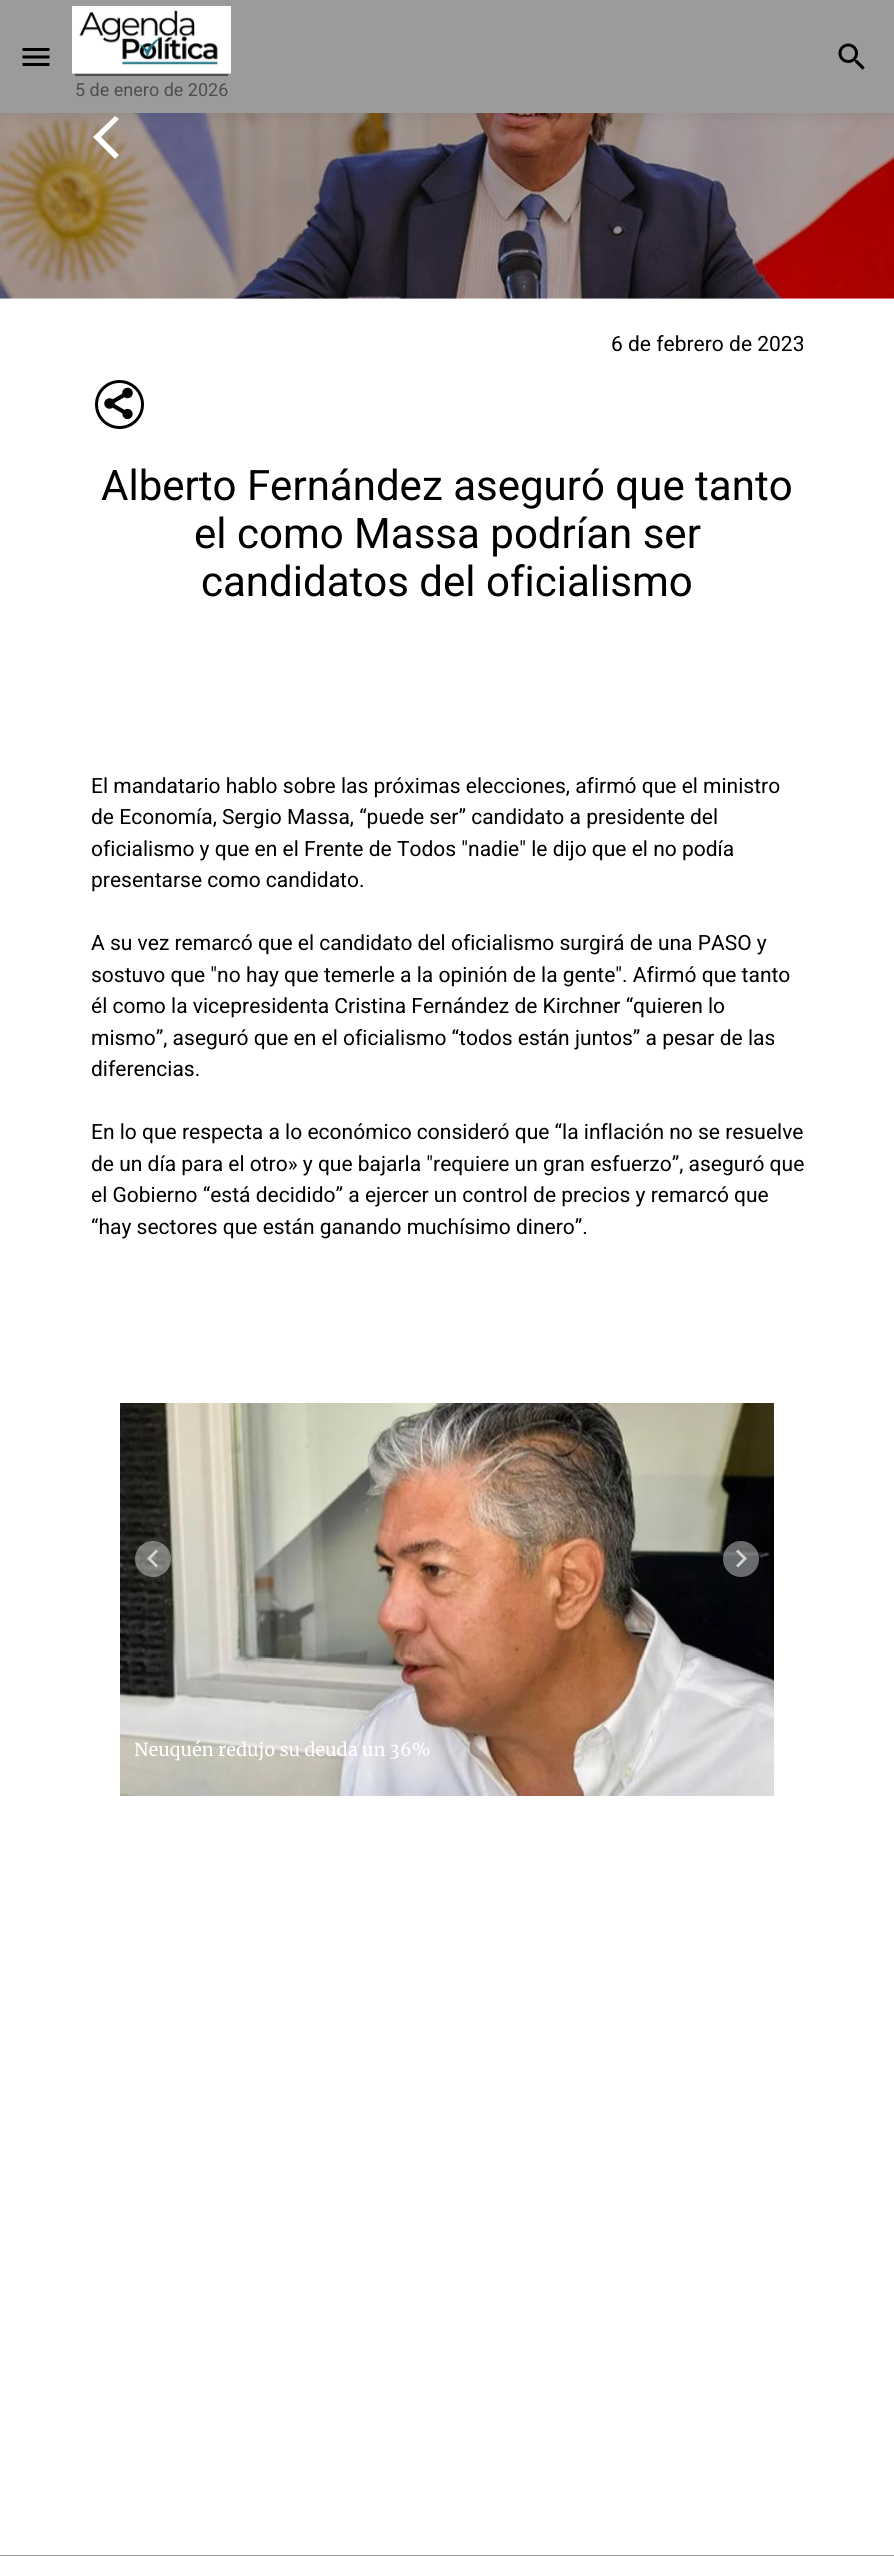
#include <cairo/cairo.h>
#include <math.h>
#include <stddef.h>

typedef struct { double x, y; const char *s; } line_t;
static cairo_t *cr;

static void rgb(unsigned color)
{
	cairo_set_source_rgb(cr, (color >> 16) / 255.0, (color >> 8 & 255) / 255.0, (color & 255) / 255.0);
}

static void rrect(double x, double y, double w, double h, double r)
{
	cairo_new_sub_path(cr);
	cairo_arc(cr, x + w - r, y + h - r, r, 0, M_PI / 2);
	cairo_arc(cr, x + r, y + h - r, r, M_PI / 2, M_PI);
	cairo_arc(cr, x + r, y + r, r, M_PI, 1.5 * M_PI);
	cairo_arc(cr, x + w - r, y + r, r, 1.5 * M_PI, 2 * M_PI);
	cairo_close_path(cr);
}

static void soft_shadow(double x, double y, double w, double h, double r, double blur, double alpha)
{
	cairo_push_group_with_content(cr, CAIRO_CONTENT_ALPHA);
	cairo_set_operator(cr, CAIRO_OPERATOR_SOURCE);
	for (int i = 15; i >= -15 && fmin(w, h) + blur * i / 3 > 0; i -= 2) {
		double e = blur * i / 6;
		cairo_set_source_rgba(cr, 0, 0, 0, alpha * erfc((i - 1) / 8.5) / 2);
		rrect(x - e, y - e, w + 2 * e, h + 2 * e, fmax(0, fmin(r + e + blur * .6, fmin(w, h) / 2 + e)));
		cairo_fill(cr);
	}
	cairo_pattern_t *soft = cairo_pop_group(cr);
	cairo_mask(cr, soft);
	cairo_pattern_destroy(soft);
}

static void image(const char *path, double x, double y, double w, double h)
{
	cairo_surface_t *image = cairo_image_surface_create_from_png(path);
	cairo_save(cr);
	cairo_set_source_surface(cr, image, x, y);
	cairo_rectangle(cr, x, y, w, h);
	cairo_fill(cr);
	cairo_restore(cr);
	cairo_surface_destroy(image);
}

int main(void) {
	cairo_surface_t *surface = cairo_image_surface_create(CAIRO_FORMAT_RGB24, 894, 2556);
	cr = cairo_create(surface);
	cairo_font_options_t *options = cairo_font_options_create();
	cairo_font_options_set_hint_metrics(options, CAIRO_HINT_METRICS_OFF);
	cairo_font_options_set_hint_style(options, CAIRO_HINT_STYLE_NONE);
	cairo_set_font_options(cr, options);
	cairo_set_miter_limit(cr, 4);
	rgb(0xffffff);
	cairo_paint(cr);
	image("img/4.png", 0, 113, 894, 186);
	rgb(0xffffff);
	cairo_new_path(cr);
	cairo_move_to(cr, 119, 119);
	cairo_line_to(cr, 115, 116);
	cairo_line_to(cr, 93, 137);
	cairo_line_to(cr, 115, 159);
	cairo_line_to(cr, 119, 155);
	cairo_line_to(cr, 101, 137);
	cairo_close_path(cr);
	cairo_fill(cr);
	rgb(0x000000);
	soft_shadow(0, 2, 894, 112, 0, 7.5, 0.1);
	rgb(0x9b9b9b);
	cairo_rectangle(cr, 0, 0, 894, 113);
	cairo_fill(cr);
	image("img/1.png", 838, 43, 27, 27);
	image("img/2.png", 22, 48, 28, 18);
	image("img/3.png", 72, 6, 159, 68);
	rgb(0x4e4e4e);
	cairo_rectangle(cr, 75, 74, 153, 2);
	cairo_fill(cr);
	cairo_arc(cr, 119.5, 404.5, 23, 0, 2 * M_PI);
	rgb(0x000000);
	cairo_set_line_width(cr, 3);
	cairo_stroke(cr);
	image("img/5.png", 104, 387, 29, 33);
	image("img/6.png", 120, 1403, 654, 393);
	cairo_set_source_rgba(cr, 1, 1, 1, 0.4);
	cairo_arc(cr, 153, 1559, 18, 0, 2 * M_PI);
	cairo_fill(cr);
	rgb(0xd3d3d3);
	cairo_new_path(cr);
	cairo_move_to(cr, 158, 1551.5);
	cairo_line_to(cr, 156, 1549.5);
	cairo_line_to(cr, 147, 1558.5);
	cairo_line_to(cr, 156, 1567.5);
	cairo_line_to(cr, 158, 1565.5);
	cairo_line_to(cr, 151, 1558.5);
	cairo_close_path(cr);
	cairo_fill(cr);
	cairo_set_source_rgba(cr, 1, 1, 1, 0.4);
	cairo_arc(cr, 741, 1559, 18, 0, 2 * M_PI);
	cairo_fill(cr);
	rgb(0xd3d3d3);
	cairo_new_path(cr);
	cairo_move_to(cr, 738, 1549.5);
	cairo_line_to(cr, 736, 1551.5);
	cairo_line_to(cr, 743, 1558.5);
	cairo_line_to(cr, 736, 1565.5);
	cairo_line_to(cr, 738, 1567.5);
	cairo_line_to(cr, 747, 1558.5);
	cairo_close_path(cr);
	cairo_fill(cr);
	rgb(0x9b9b9b);
	cairo_rectangle(cr, 0, 2555, 894, 1);
	cairo_fill(cr);
	cairo_select_font_face(cr, "Heebo", CAIRO_FONT_SLANT_NORMAL, CAIRO_FONT_WEIGHT_NORMAL);
	cairo_set_font_size(cr, 18);
	rgb(0x4e4e4e);
	cairo_move_to(cr, 75, 96);
	cairo_show_text(cr, "5 de enero de 2026");
	cairo_set_font_size(cr, 21);
	rgb(0x000000);
	cairo_move_to(cr, 611, 351);
	cairo_show_text(cr, "6 de febrero de 2023");
	cairo_set_font_size(cr, 42);
	{
		static const line_t items[] = {
			{101, 500, "Alberto Fernández aseguró que tanto"},
			{194, 548, "el como Massa podrían ser"},
			{201, 596, "candidatos del oficialismo"},
		};
		for (size_t i = 0; i < sizeof items / sizeof *items; i++) {
			cairo_move_to(cr, items[i].x, items[i].y);
			cairo_show_text(cr, items[i].s);
		}
	}
	cairo_set_font_size(cr, 21);
	{
		static const line_t items[] = {
			{91, 793, "El mandatario hablo sobre las próximas elecciones, afirmó que el ministro"},
			{91, 824, "de Economía, Sergio Massa, “puede ser” candidato a presidente del"},
			{91, 856, "oficialismo y que en el Frente de Todos \"nadie\" le dijo que el no podía"},
			{91, 887, "presentarse como candidato."},
			{91, 950, "A su vez remarcó que el candidato del oficialismo surgirá de una PASO y"},
			{91, 982, "sostuvo que \"no hay que temerle a la opinión de la gente\". Afirmó que tanto"},
			{91, 1013, "él como la vicepresidenta Cristina Fernández de Kirchner “quieren lo"},
			{91, 1045, "mismo”, aseguró que en el oficialismo “todos están juntos” a pesar de las"},
			{91, 1076, "diferencias."},
			{91, 1139, "En lo que respecta a lo económico consideró que “la inflación no se resuelve"},
			{91, 1171, "de un día para el otro» y que bajarla \"requiere un gran esfuerzo”, aseguró que"},
			{91, 1202, "el Gobierno “está decidido” a ejercer un control de precios y remarcó que"},
			{91, 1234, "“hay sectores que están ganando muchísimo dinero”."},
		};
		for (size_t i = 0; i < sizeof items / sizeof *items; i++) {
			cairo_move_to(cr, items[i].x, items[i].y);
			cairo_show_text(cr, items[i].s);
		}
	}
	cairo_select_font_face(cr, "Merriweather", CAIRO_FONT_SLANT_NORMAL, CAIRO_FONT_WEIGHT_NORMAL);
	cairo_set_font_size(cr, 18);
	rgb(0xffffff);
	cairo_move_to(cr, 134, 1756);
	cairo_show_text(cr, "Neuquén redujo su deuda un 36%");
	cairo_surface_write_to_png(surface, "page.png");
	cairo_font_options_destroy(options);
	cairo_destroy(cr);
	cairo_surface_destroy(surface);
	return 0;
}
